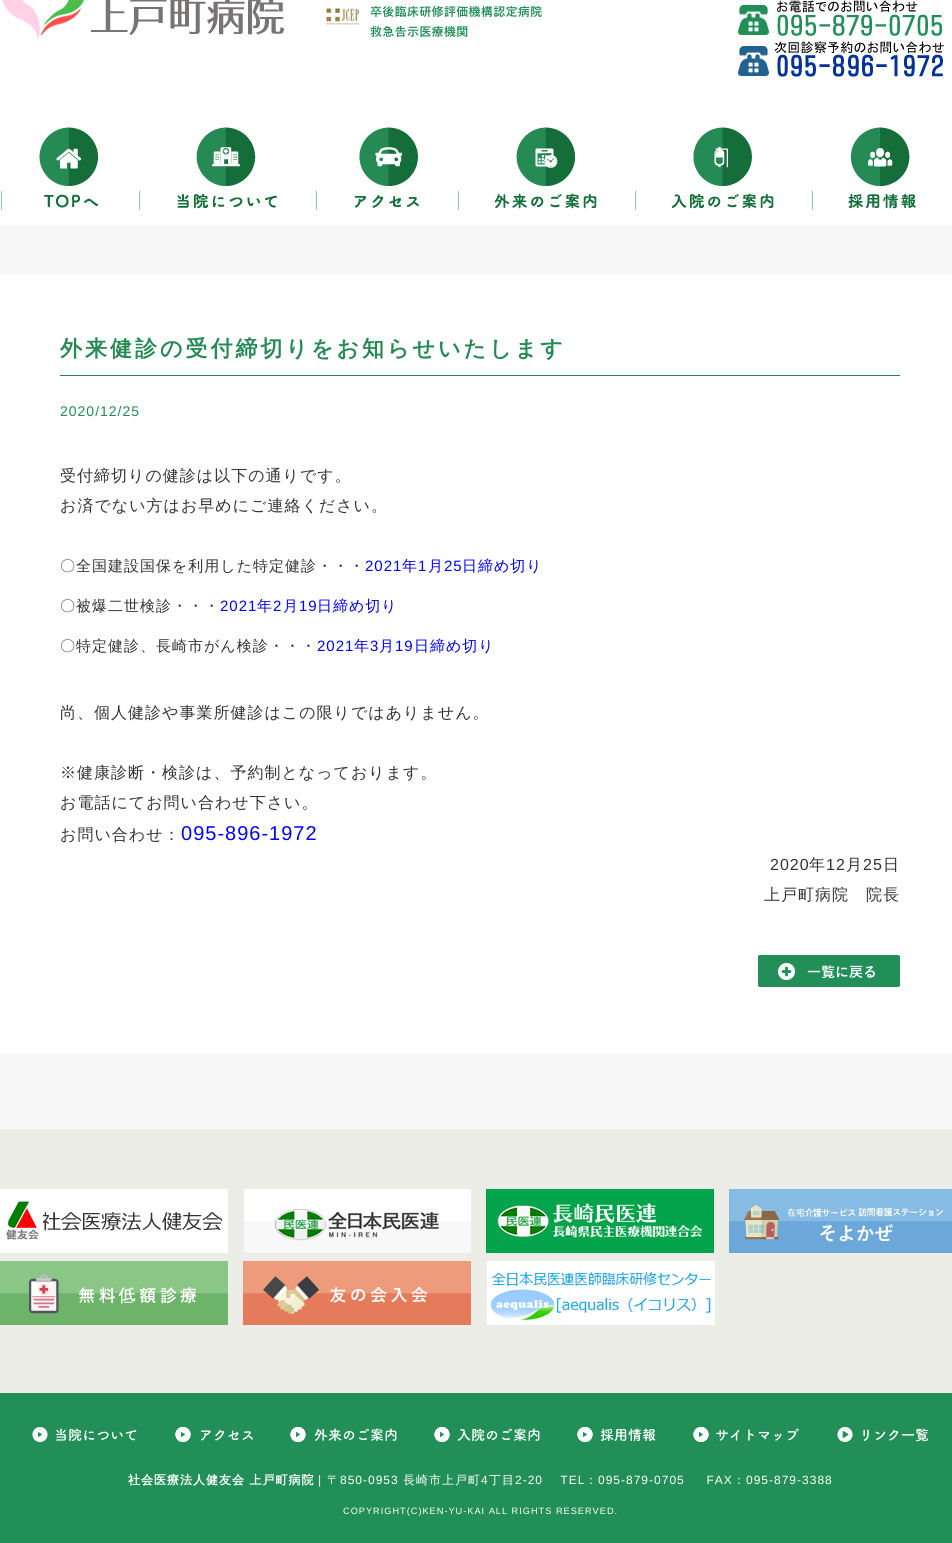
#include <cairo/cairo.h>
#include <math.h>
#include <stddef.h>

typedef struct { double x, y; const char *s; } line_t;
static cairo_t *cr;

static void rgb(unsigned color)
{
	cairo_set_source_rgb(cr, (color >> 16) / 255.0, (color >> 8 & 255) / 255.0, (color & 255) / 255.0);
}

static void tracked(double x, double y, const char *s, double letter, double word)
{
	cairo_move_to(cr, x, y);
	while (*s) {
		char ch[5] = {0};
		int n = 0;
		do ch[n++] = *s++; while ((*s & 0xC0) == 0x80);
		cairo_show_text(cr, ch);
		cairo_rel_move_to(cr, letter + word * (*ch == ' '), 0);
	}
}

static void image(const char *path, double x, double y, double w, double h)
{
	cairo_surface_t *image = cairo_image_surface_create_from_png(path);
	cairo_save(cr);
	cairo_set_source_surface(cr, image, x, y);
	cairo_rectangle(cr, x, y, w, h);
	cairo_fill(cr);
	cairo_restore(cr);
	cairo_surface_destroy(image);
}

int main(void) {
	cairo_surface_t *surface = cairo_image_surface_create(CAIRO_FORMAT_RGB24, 952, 1543);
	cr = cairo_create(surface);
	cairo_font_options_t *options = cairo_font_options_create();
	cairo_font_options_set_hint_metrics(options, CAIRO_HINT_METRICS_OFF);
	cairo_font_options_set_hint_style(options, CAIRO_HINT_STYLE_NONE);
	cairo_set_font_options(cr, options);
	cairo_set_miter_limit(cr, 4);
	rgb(0xf7f7f7);
	cairo_paint(cr);
	rgb(0xffffff);
	cairo_rectangle(cr, 0, 0, 952, 225);
	cairo_fill(cr);
	image("img/1.png", 2, 0, 282, 39);
	image("img/2.png", 326, 5, 216, 32);
	image("img/3.png", 738, 0, 206, 77);
	image("img/4.png", 1, 127, 139, 83);
	image("img/5.png", 177, 127, 140, 83);
	image("img/6.png", 354, 127, 105, 83);
	image("img/7.png", 494, 127, 142, 83);
	image("img/8.png", 671, 127, 142, 83);
	image("img/9.png", 848, 127, 68, 82);
	cairo_rectangle(cr, 0, 275, 952, 778);
	cairo_fill(cr);
	rgb(0x268a55);
	cairo_rectangle(cr, 60, 375, 840, 1);
	cairo_fill(cr);
	image("img/10.png", 758, 955, 142, 32);
	rgb(0xebede6);
	cairo_rectangle(cr, 0, 1129, 952, 264);
	cairo_fill(cr);
	image("img/11.png", 0, 1189, 228, 64);
	image("img/12.png", 243, 1189, 228, 64);
	image("img/13.png", 486, 1189, 228, 64);
	image("img/14.png", 729, 1189, 223, 64);
	image("img/15.png", 0, 1261, 228, 64);
	image("img/16.png", 243, 1261, 228, 64);
	image("img/17.png", 487, 1261, 228, 64);
	rgb(0x238f58);
	cairo_rectangle(cr, 0, 1393, 952, 150);
	cairo_fill(cr);
	image("img/18.png", 32, 1427, 105, 15);
	image("img/19.png", 175, 1427, 78, 15);
	image("img/20.png", 290, 1427, 107, 15);
	image("img/21.png", 434, 1427, 106, 15);
	image("img/22.png", 577, 1427, 79, 15);
	image("img/23.png", 693, 1427, 106, 15);
	image("img/24.png", 837, 1427, 91, 15);
	cairo_select_font_face(cr, "WenQuanYi Zen Hei", CAIRO_FONT_SLANT_NORMAL, CAIRO_FONT_WEIGHT_BOLD);
	cairo_set_font_size(cr, 22);
	rgb(0x268a55);
	tracked(60, 356, "外来健診の受付締切りをお知らせいたします", 3, 0);
	cairo_select_font_face(cr, "Liberation Sans", CAIRO_FONT_SLANT_NORMAL, CAIRO_FONT_WEIGHT_NORMAL);
	cairo_set_font_size(cr, 14);
	tracked(60, 416, "2020/12/25", 1, 0);
	cairo_select_font_face(cr, "WenQuanYi Zen Hei Medium", CAIRO_FONT_SLANT_NORMAL, CAIRO_FONT_WEIGHT_NORMAL);
	cairo_set_font_size(cr, 16);
	rgb(0x333333);
	tracked(60, 481, "受付締切りの健診は以下の通りです。", 1, 0);
	tracked(60, 511, "お済でない方はお早めにご連絡ください。", 1, 0);
	cairo_set_font_size(cr, 15);
	tracked(60, 571, "〇全国建設国保を利用した特定健診・・・", 1, 0);
	cairo_select_font_face(cr, "Liberation Sans", CAIRO_FONT_SLANT_NORMAL, CAIRO_FONT_WEIGHT_NORMAL);
	rgb(0x0000ff);
	tracked(365, 571, "2021", 1, 0);
	cairo_select_font_face(cr, "WenQuanYi Zen Hei Medium", CAIRO_FONT_SLANT_NORMAL, CAIRO_FONT_WEIGHT_NORMAL);
	tracked(402, 571, "年", 1, 0);
	cairo_select_font_face(cr, "Liberation Sans", CAIRO_FONT_SLANT_NORMAL, CAIRO_FONT_WEIGHT_NORMAL);
	tracked(418, 571, "1", 1, 0);
	cairo_select_font_face(cr, "WenQuanYi Zen Hei Medium", CAIRO_FONT_SLANT_NORMAL, CAIRO_FONT_WEIGHT_NORMAL);
	tracked(428, 571, "月", 1, 0);
	cairo_select_font_face(cr, "Liberation Sans", CAIRO_FONT_SLANT_NORMAL, CAIRO_FONT_WEIGHT_NORMAL);
	tracked(444, 571, "25", 1, 0);
	cairo_select_font_face(cr, "WenQuanYi Zen Hei Medium", CAIRO_FONT_SLANT_NORMAL, CAIRO_FONT_WEIGHT_NORMAL);
	tracked(462, 571, "日締め切り", 1, 0);
	rgb(0x333333);
	tracked(60, 611, "〇被爆二世検診・・・", 1, 0);
	cairo_select_font_face(cr, "Liberation Sans", CAIRO_FONT_SLANT_NORMAL, CAIRO_FONT_WEIGHT_NORMAL);
	rgb(0x0000ff);
	tracked(220, 611, "2021", 1, 0);
	cairo_select_font_face(cr, "WenQuanYi Zen Hei Medium", CAIRO_FONT_SLANT_NORMAL, CAIRO_FONT_WEIGHT_NORMAL);
	tracked(257, 611, "年", 1, 0);
	cairo_select_font_face(cr, "Liberation Sans", CAIRO_FONT_SLANT_NORMAL, CAIRO_FONT_WEIGHT_NORMAL);
	tracked(273, 611, "2", 1, 0);
	cairo_select_font_face(cr, "WenQuanYi Zen Hei Medium", CAIRO_FONT_SLANT_NORMAL, CAIRO_FONT_WEIGHT_NORMAL);
	tracked(283, 611, "月", 1, 0);
	cairo_select_font_face(cr, "Liberation Sans", CAIRO_FONT_SLANT_NORMAL, CAIRO_FONT_WEIGHT_NORMAL);
	tracked(299, 611, "19", 1, 0);
	cairo_select_font_face(cr, "WenQuanYi Zen Hei Medium", CAIRO_FONT_SLANT_NORMAL, CAIRO_FONT_WEIGHT_NORMAL);
	tracked(317, 611, "日締め切り", 1, 0);
	rgb(0x333333);
	tracked(60, 651, "〇特定健診、長崎市がん検診・・・", 1, 0);
	cairo_select_font_face(cr, "Liberation Sans", CAIRO_FONT_SLANT_NORMAL, CAIRO_FONT_WEIGHT_NORMAL);
	rgb(0x0000ff);
	tracked(317, 651, "2021", 1, 0);
	cairo_select_font_face(cr, "WenQuanYi Zen Hei Medium", CAIRO_FONT_SLANT_NORMAL, CAIRO_FONT_WEIGHT_NORMAL);
	tracked(354, 651, "年", 1, 0);
	cairo_select_font_face(cr, "Liberation Sans", CAIRO_FONT_SLANT_NORMAL, CAIRO_FONT_WEIGHT_NORMAL);
	tracked(370, 651, "3", 1, 0);
	cairo_select_font_face(cr, "WenQuanYi Zen Hei Medium", CAIRO_FONT_SLANT_NORMAL, CAIRO_FONT_WEIGHT_NORMAL);
	tracked(379, 651, "月", 1, 0);
	cairo_select_font_face(cr, "Liberation Sans", CAIRO_FONT_SLANT_NORMAL, CAIRO_FONT_WEIGHT_NORMAL);
	tracked(395, 651, "19", 1, 0);
	cairo_select_font_face(cr, "WenQuanYi Zen Hei Medium", CAIRO_FONT_SLANT_NORMAL, CAIRO_FONT_WEIGHT_NORMAL);
	tracked(414, 651, "日締め切り", 1, 0);
	cairo_set_font_size(cr, 16);
	rgb(0x333333);
	{
		static const line_t items[] = {
			{60, 718, "尚、個人健診や事業所健診はこの限りではありません。"},
			{60, 778, "※健康診断・検診は、予約制となっております。"},
			{60, 808, "お電話にてお問い合わせ下さい。"},
			{60, 840, "お問い合わせ："},
		};
		for (size_t i = 0; i < sizeof items / sizeof *items; i++) {
			tracked(items[i].x, items[i].y, items[i].s, 1, 0);
		}
	}
	cairo_select_font_face(cr, "Liberation Sans", CAIRO_FONT_SLANT_NORMAL, CAIRO_FONT_WEIGHT_NORMAL);
	cairo_set_font_size(cr, 20);
	rgb(0x0000ff);
	tracked(181, 840, "095-896-1972", 1, 0);
	cairo_set_font_size(cr, 16);
	rgb(0x333333);
	tracked(770, 870, "2020", 1, 0);
	cairo_select_font_face(cr, "WenQuanYi Zen Hei Medium", CAIRO_FONT_SLANT_NORMAL, CAIRO_FONT_WEIGHT_NORMAL);
	tracked(809, 870, "年", 1, 0);
	cairo_select_font_face(cr, "Liberation Sans", CAIRO_FONT_SLANT_NORMAL, CAIRO_FONT_WEIGHT_NORMAL);
	tracked(826, 870, "12", 1, 0);
	cairo_select_font_face(cr, "WenQuanYi Zen Hei Medium", CAIRO_FONT_SLANT_NORMAL, CAIRO_FONT_WEIGHT_NORMAL);
	tracked(846, 870, "月", 1, 0);
	cairo_select_font_face(cr, "Liberation Sans", CAIRO_FONT_SLANT_NORMAL, CAIRO_FONT_WEIGHT_NORMAL);
	tracked(863, 870, "25", 1, 0);
	cairo_select_font_face(cr, "WenQuanYi Zen Hei Medium", CAIRO_FONT_SLANT_NORMAL, CAIRO_FONT_WEIGHT_NORMAL);
	tracked(883, 870, "日", 1, 0);
	tracked(764, 900, "上戸町病院　院長", 1, 0);
	cairo_select_font_face(cr, "WenQuanYi Zen Hei", CAIRO_FONT_SLANT_NORMAL, CAIRO_FONT_WEIGHT_BOLD);
	cairo_set_font_size(cr, 12);
	rgb(0xffffff);
	tracked(128, 1484, "社会医療法人健友会 上戸町病院", 1, 0);
	cairo_select_font_face(cr, "Liberation Sans", CAIRO_FONT_SLANT_NORMAL, CAIRO_FONT_WEIGHT_NORMAL);
	tracked(318, 1484, "|", 1, 0);
	cairo_select_font_face(cr, "WenQuanYi Zen Hei Medium", CAIRO_FONT_SLANT_NORMAL, CAIRO_FONT_WEIGHT_NORMAL);
	tracked(327, 1484, "〒", 1, 0);
	cairo_select_font_face(cr, "Liberation Sans", CAIRO_FONT_SLANT_NORMAL, CAIRO_FONT_WEIGHT_NORMAL);
	tracked(340, 1484, "850-0953", 1, 0);
	cairo_select_font_face(cr, "WenQuanYi Zen Hei Medium", CAIRO_FONT_SLANT_NORMAL, CAIRO_FONT_WEIGHT_NORMAL);
	tracked(403, 1484, "長崎市上戸町", 1, 0);
	cairo_select_font_face(cr, "Liberation Sans", CAIRO_FONT_SLANT_NORMAL, CAIRO_FONT_WEIGHT_NORMAL);
	tracked(481, 1484, "4", 1, 0);
	cairo_select_font_face(cr, "WenQuanYi Zen Hei Medium", CAIRO_FONT_SLANT_NORMAL, CAIRO_FONT_WEIGHT_NORMAL);
	tracked(489, 1484, "丁目", 1, 0);
	cairo_select_font_face(cr, "Liberation Sans", CAIRO_FONT_SLANT_NORMAL, CAIRO_FONT_WEIGHT_NORMAL);
	tracked(515, 1484, "2-20    TEL", 1, 0);
	cairo_select_font_face(cr, "WenQuanYi Zen Hei Medium", CAIRO_FONT_SLANT_NORMAL, CAIRO_FONT_WEIGHT_NORMAL);
	tracked(585, 1484, "：", 1, 0);
	cairo_select_font_face(cr, "Liberation Sans", CAIRO_FONT_SLANT_NORMAL, CAIRO_FONT_WEIGHT_NORMAL);
	tracked(598, 1484, "095-879-0705     FAX", 1, 0);
	cairo_select_font_face(cr, "WenQuanYi Zen Hei Medium", CAIRO_FONT_SLANT_NORMAL, CAIRO_FONT_WEIGHT_NORMAL);
	tracked(733, 1484, "：", 1, 0);
	cairo_select_font_face(cr, "Liberation Sans", CAIRO_FONT_SLANT_NORMAL, CAIRO_FONT_WEIGHT_NORMAL);
	tracked(746, 1484, "095-879-3388", 1, 0);
	cairo_set_font_size(cr, 9.2);
	tracked(343, 1514, "COPYRIGHT(C)KEN-YU-KAI ALL RIGHTS RESERVED.", 1, 0);
	cairo_surface_write_to_png(surface, "page.png");
	cairo_font_options_destroy(options);
	cairo_destroy(cr);
	cairo_surface_destroy(surface);
	return 0;
}
